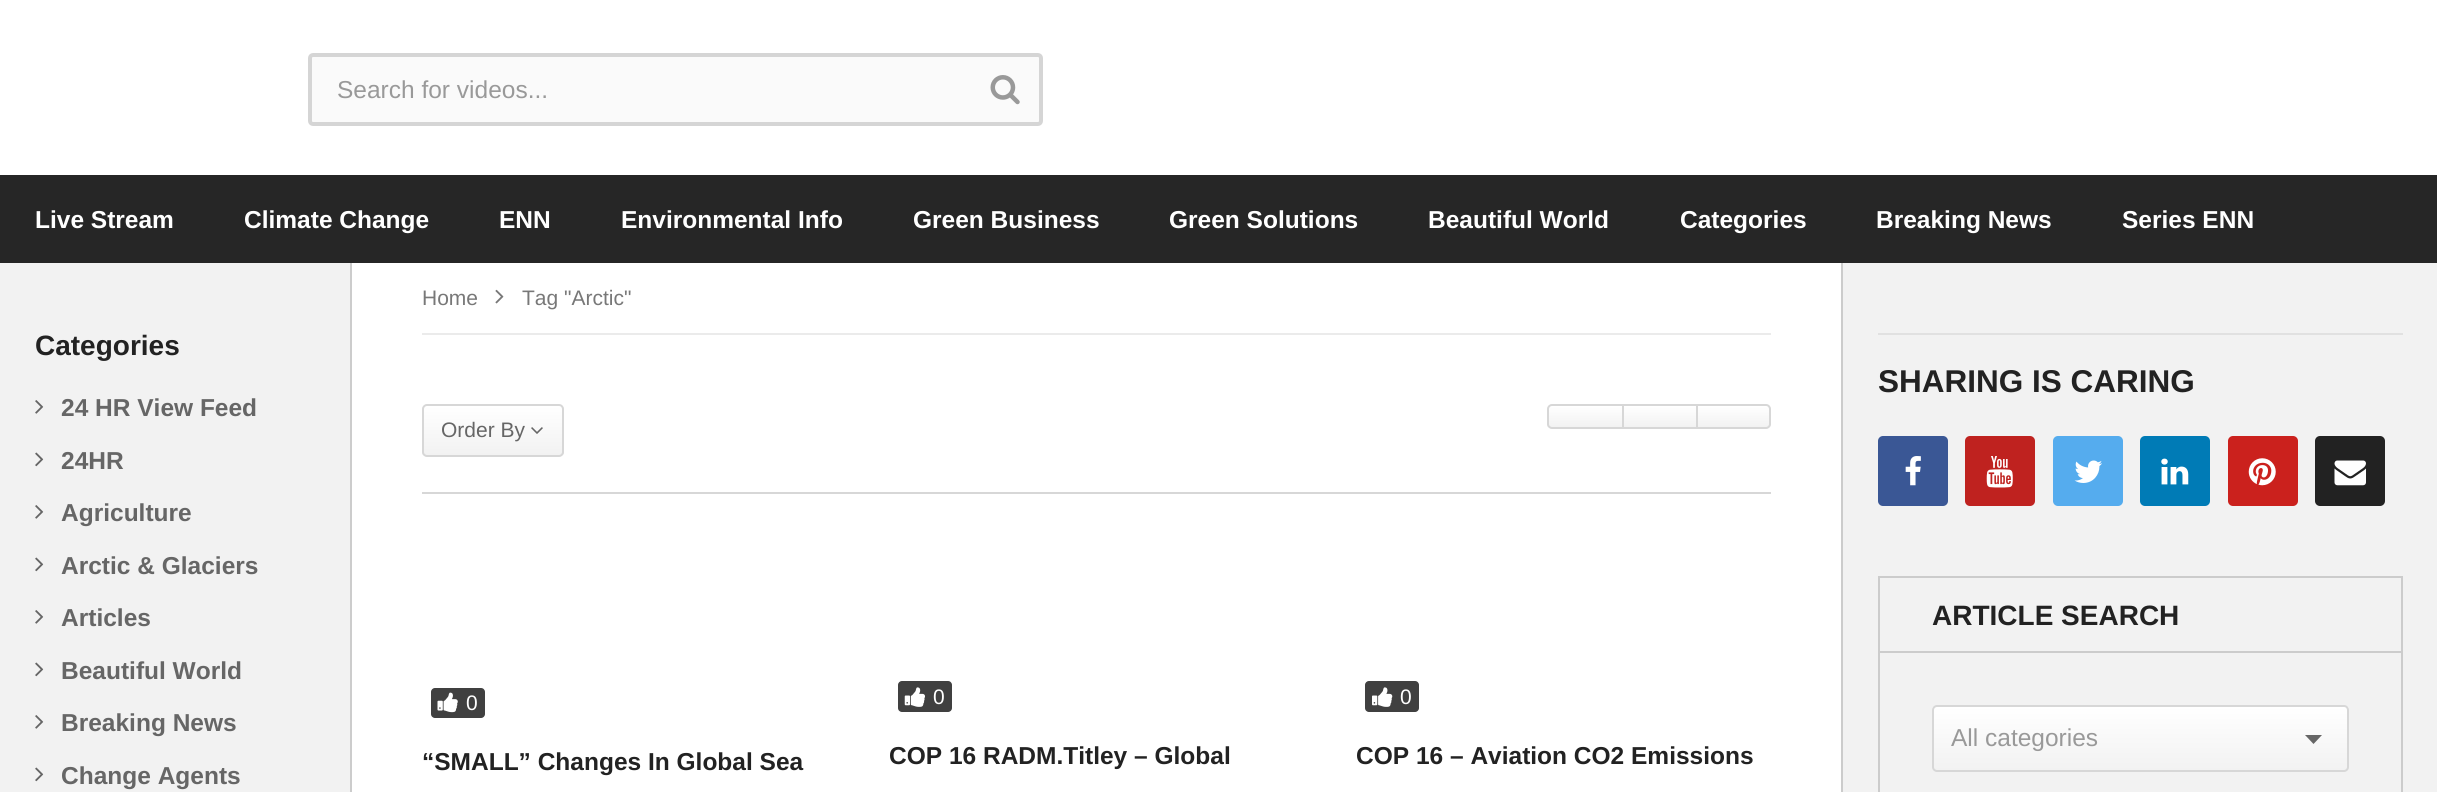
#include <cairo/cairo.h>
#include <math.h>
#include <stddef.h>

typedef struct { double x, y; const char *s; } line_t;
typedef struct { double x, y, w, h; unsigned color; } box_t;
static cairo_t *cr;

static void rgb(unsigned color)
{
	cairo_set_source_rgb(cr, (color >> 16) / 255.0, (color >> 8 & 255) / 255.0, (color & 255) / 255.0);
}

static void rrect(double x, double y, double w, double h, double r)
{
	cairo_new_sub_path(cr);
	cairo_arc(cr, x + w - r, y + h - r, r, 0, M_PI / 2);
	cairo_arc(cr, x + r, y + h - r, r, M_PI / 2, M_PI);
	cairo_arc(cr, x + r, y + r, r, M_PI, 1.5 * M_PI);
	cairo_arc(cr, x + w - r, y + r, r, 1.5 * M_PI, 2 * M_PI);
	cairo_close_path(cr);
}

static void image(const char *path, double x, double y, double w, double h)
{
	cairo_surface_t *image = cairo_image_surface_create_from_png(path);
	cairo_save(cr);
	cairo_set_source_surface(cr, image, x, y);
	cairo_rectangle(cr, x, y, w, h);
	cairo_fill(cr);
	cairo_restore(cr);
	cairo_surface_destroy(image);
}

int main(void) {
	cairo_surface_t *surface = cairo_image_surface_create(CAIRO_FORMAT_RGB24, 2437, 792);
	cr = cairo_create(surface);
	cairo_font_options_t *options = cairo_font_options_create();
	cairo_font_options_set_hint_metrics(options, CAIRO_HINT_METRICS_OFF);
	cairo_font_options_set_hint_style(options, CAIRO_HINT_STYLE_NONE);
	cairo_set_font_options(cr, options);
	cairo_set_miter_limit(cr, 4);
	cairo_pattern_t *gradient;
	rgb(0xffffff);
	cairo_paint(cr);
	rgb(0xfafafa);
	rrect(310, 55, 731, 69, 3);
	cairo_fill_preserve(cr);
	rgb(0xd5d5d5);
	cairo_set_line_width(cr, 4);
	cairo_stroke(cr);
	image("img/1.png", 990, 75, 30, 30);
	{
		static const box_t items[] = {
			{0, 175, 2437, 88, 0x262626},
			{0, 263, 2437, 529, 0xf2f2f2},
			{352, 263, 1489, 529, 0xffffff},
			{1841, 263, 2, 529, 0xcccccc},
			{350, 263, 2, 529, 0xcccccc},
		};
		for (size_t i = 0; i < sizeof items / sizeof *items; i++) {
			rgb(items[i].color);
			cairo_rectangle(cr, items[i].x, items[i].y, items[i].w, items[i].h);
			cairo_fill(cr);
		}
	}
	image("img/2.png", 35, 400, 9, 14);
	image("img/3.png", 35, 452, 9, 15);
	image("img/2.png", 35, 505, 9, 14);
	image("img/3.png", 35, 557, 9, 15);
	image("img/2.png", 35, 610, 9, 14);
	image("img/3.png", 35, 662, 9, 15);
	image("img/2.png", 35, 715, 9, 14);
	image("img/3.png", 35, 767, 9, 15);
	rgb(0xebebeb);
	cairo_rectangle(cr, 422, 333, 1349, 2);
	cairo_fill(cr);
	image("img/4.png", 495, 289, 9, 15);
	rgb(0xd7d7d7);
	cairo_rectangle(cr, 422, 492, 1349, 2);
	cairo_fill(cr);
	cairo_save(cr);
	rrect(1547, 404, 224, 25, 5);
	cairo_clip(cr);
	gradient = cairo_pattern_create_linear(1659, 406, 1659, 427);
	cairo_pattern_add_color_stop_rgba(gradient, 0, 1, 1, 1, 1);
	cairo_pattern_add_color_stop_rgba(gradient, 1, 0.949, 0.949, 0.949, 1);
	cairo_set_source(cr, gradient);
	cairo_pattern_destroy(gradient);
	cairo_rectangle(cr, 1547, 406, 224, 21);
	cairo_fill(cr);
	cairo_restore(cr);
	rrect(1548, 405, 222, 23, 4);
	cairo_set_line_width(cr, 2);
	cairo_stroke(cr);
	cairo_rectangle(cr, 1622, 406, 2, 21);
	cairo_fill(cr);
	cairo_rectangle(cr, 1696, 406, 2, 21);
	cairo_fill(cr);
	cairo_save(cr);
	rrect(422, 404, 142, 53, 5);
	cairo_clip(cr);
	gradient = cairo_pattern_create_linear(493, 406, 493, 455);
	cairo_pattern_add_color_stop_rgba(gradient, 0, 1, 1, 1, 1);
	cairo_pattern_add_color_stop_rgba(gradient, 1, 0.949, 0.949, 0.949, 1);
	cairo_set_source(cr, gradient);
	cairo_pattern_destroy(gradient);
	cairo_rectangle(cr, 422, 406, 142, 49);
	cairo_fill(cr);
	cairo_restore(cr);
	rrect(423, 405, 140, 51, 4);
	cairo_stroke(cr);
	image("img/5.png", 531, 427, 12, 7);
	rgb(0x404040);
	rrect(431, 688, 54, 30, 4);
	cairo_fill(cr);
	image("img/6.png", 437, 692, 21, 21);
	rrect(898, 681, 54, 31, 4);
	cairo_fill(cr);
	image("img/7.png", 904, 687, 21, 20);
	rrect(1365, 681, 54, 31, 4);
	cairo_fill(cr);
	image("img/8.png", 1372, 687, 21, 20);
	rgb(0xe1e1e1);
	cairo_rectangle(cr, 1878, 333, 525, 2);
	cairo_fill(cr);
	rgb(0x3a5795);
	rrect(1878, 436, 70, 70, 5);
	cairo_fill(cr);
	image("img/9.png", 1905, 456, 16, 30);
	rgb(0xbf221f);
	rrect(1965, 436, 70, 70, 5);
	cairo_fill(cr);
	image("img/10.png", 1986, 456, 27, 32);
	rgb(0x55acee);
	rrect(2053, 436, 70, 70, 5);
	cairo_fill(cr);
	image("img/11.png", 2074, 460, 28, 23);
	rgb(0x007bb6);
	rrect(2140, 436, 70, 70, 5);
	cairo_fill(cr);
	image("img/12.png", 2161, 458, 28, 27);
	rgb(0xcb211d);
	rrect(2228, 436, 70, 70, 5);
	cairo_fill(cr);
	image("img/13.png", 2248, 458, 28, 28);
	rgb(0x222222);
	rrect(2315, 436, 70, 70, 5);
	cairo_fill(cr);
	image("img/14.png", 2334, 460, 32, 26);
	cairo_rectangle(cr, 1879, 577, 523, 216);
	rgb(0xcccccc);
	cairo_stroke(cr);
	cairo_rectangle(cr, 1880, 651, 521, 2);
	cairo_fill(cr);
	cairo_save(cr);
	rrect(1932, 705, 417, 67, 5);
	cairo_clip(cr);
	gradient = cairo_pattern_create_linear(2140, 707, 2140, 770);
	cairo_pattern_add_color_stop_rgba(gradient, 0, 1, 1, 1, 1);
	cairo_pattern_add_color_stop_rgba(gradient, 1, 0.949, 0.949, 0.949, 1);
	cairo_set_source(cr, gradient);
	cairo_pattern_destroy(gradient);
	cairo_rectangle(cr, 1932, 707, 417, 63);
	cairo_fill(cr);
	cairo_restore(cr);
	rrect(1933, 706, 415, 65, 4);
	rgb(0xd7d7d7);
	cairo_stroke(cr);
	rgb(0x666666);
	cairo_new_path(cr);
	cairo_move_to(cr, 2305, 735);
	cairo_line_to(cr, 2322, 735);
	cairo_line_to(cr, 2313.5, 744);
	cairo_close_path(cr);
	cairo_fill(cr);
	cairo_select_font_face(cr, "Liberation Sans", CAIRO_FONT_SLANT_NORMAL, CAIRO_FONT_WEIGHT_NORMAL);
	cairo_set_font_size(cr, 24.5);
	rgb(0x999999);
	cairo_move_to(cr, 337, 98);
	cairo_show_text(cr, "Search for videos...");
	cairo_select_font_face(cr, "Liberation Sans", CAIRO_FONT_SLANT_NORMAL, CAIRO_FONT_WEIGHT_BOLD);
	rgb(0xffffff);
	{
		static const line_t items[] = {
			{35, 228, "Live Stream"},
			{244, 228, "Climate Change"},
			{499, 228, "ENN"},
			{621, 228, "Environmental Info"},
			{913, 228, "Green Business"},
			{1169, 228, "Green Solutions"},
			{1428, 228, "Beautiful World"},
			{1680, 228, "Categories"},
			{1876, 228, "Breaking News"},
			{2122, 228, "Series ENN"},
		};
		for (size_t i = 0; i < sizeof items / sizeof *items; i++) {
			cairo_move_to(cr, items[i].x, items[i].y);
			cairo_show_text(cr, items[i].s);
		}
	}
	cairo_set_font_size(cr, 28);
	rgb(0x222222);
	cairo_move_to(cr, 35, 355);
	cairo_show_text(cr, "Categories");
	cairo_set_font_size(cr, 24.5);
	rgb(0x666666);
	{
		static const line_t items[] = {
			{61, 416, "24 HR View Feed"},
			{61, 469, "24HR"},
			{61, 521, "Agriculture"},
			{61, 574, "Arctic & Glaciers"},
			{61, 626, "Articles"},
			{61, 679, "Beautiful World"},
			{61, 731, "Breaking News"},
			{61, 784, "Change Agents"},
		};
		for (size_t i = 0; i < sizeof items / sizeof *items; i++) {
			cairo_move_to(cr, items[i].x, items[i].y);
			cairo_show_text(cr, items[i].s);
		}
	}
	cairo_select_font_face(cr, "Liberation Sans", CAIRO_FONT_SLANT_NORMAL, CAIRO_FONT_WEIGHT_NORMAL);
	cairo_set_font_size(cr, 21);
	rgb(0x787878);
	cairo_move_to(cr, 422, 305);
	cairo_show_text(cr, "Home");
	cairo_move_to(cr, 522, 305);
	cairo_show_text(cr, "Tag \"Arctic\"");
	rgb(0x666666);
	cairo_move_to(cr, 441, 437);
	cairo_show_text(cr, "Order By");
	rgb(0xffffff);
	cairo_move_to(cr, 466, 710);
	cairo_show_text(cr, "0");
	cairo_select_font_face(cr, "Liberation Sans", CAIRO_FONT_SLANT_NORMAL, CAIRO_FONT_WEIGHT_BOLD);
	cairo_set_font_size(cr, 24.5);
	rgb(0x222222);
	cairo_move_to(cr, 422, 770);
	cairo_show_text(cr, "“SMALL” Changes In Global Sea");
	cairo_select_font_face(cr, "Liberation Sans", CAIRO_FONT_SLANT_NORMAL, CAIRO_FONT_WEIGHT_NORMAL);
	cairo_set_font_size(cr, 21);
	rgb(0xffffff);
	cairo_move_to(cr, 933, 704);
	cairo_show_text(cr, "0");
	cairo_select_font_face(cr, "Liberation Sans", CAIRO_FONT_SLANT_NORMAL, CAIRO_FONT_WEIGHT_BOLD);
	cairo_set_font_size(cr, 24.5);
	rgb(0x222222);
	cairo_move_to(cr, 889, 764);
	cairo_show_text(cr, "COP 16 RADM.Titley – Global");
	cairo_select_font_face(cr, "Liberation Sans", CAIRO_FONT_SLANT_NORMAL, CAIRO_FONT_WEIGHT_NORMAL);
	cairo_set_font_size(cr, 21);
	rgb(0xffffff);
	cairo_move_to(cr, 1400, 704);
	cairo_show_text(cr, "0");
	cairo_select_font_face(cr, "Liberation Sans", CAIRO_FONT_SLANT_NORMAL, CAIRO_FONT_WEIGHT_BOLD);
	cairo_set_font_size(cr, 24.5);
	rgb(0x222222);
	cairo_move_to(cr, 1356, 764);
	cairo_show_text(cr, "COP 16 – Aviation CO2 Emissions");
	cairo_set_font_size(cr, 31.5);
	cairo_move_to(cr, 1878, 392);
	cairo_show_text(cr, "SHARING IS CARING");
	cairo_set_font_size(cr, 28);
	cairo_move_to(cr, 1932, 625);
	cairo_show_text(cr, "ARTICLE SEARCH");
	cairo_select_font_face(cr, "Liberation Sans", CAIRO_FONT_SLANT_NORMAL, CAIRO_FONT_WEIGHT_NORMAL);
	cairo_set_font_size(cr, 24.5);
	rgb(0x999999);
	cairo_move_to(cr, 1951, 746);
	cairo_show_text(cr, "All categories");
	cairo_surface_write_to_png(surface, "page.png");
	cairo_font_options_destroy(options);
	cairo_destroy(cr);
	cairo_surface_destroy(surface);
	return 0;
}
